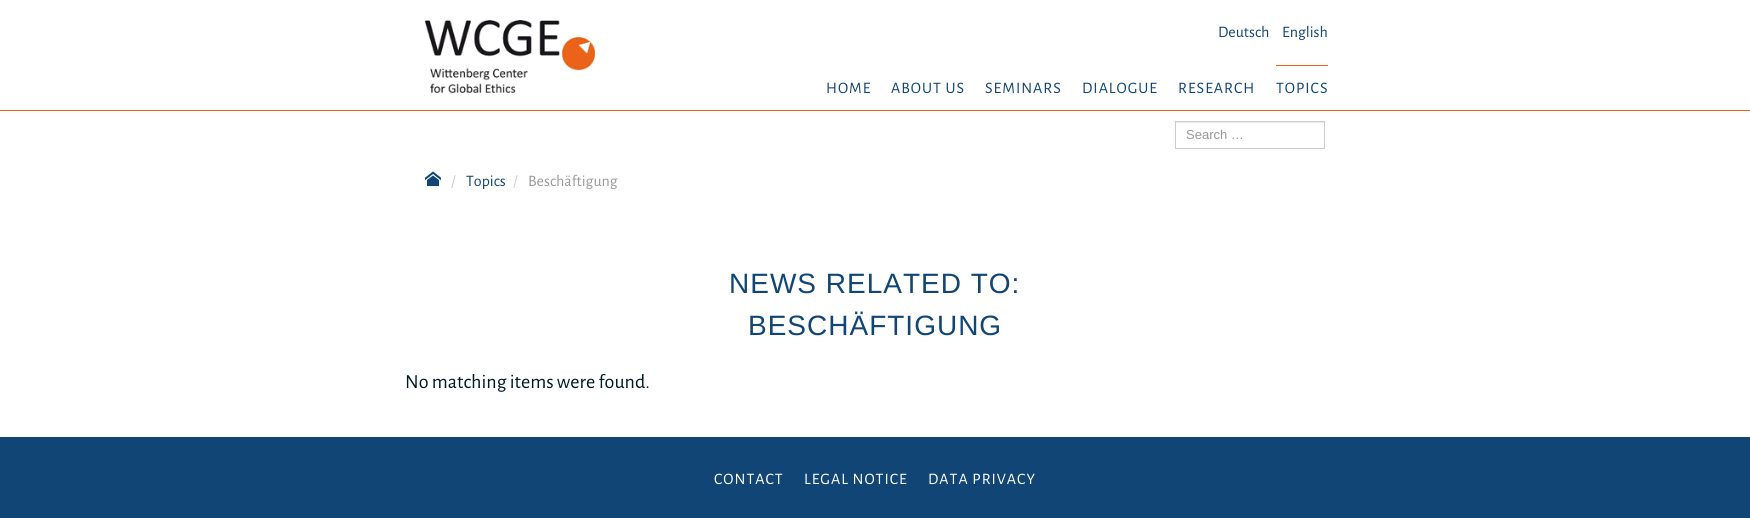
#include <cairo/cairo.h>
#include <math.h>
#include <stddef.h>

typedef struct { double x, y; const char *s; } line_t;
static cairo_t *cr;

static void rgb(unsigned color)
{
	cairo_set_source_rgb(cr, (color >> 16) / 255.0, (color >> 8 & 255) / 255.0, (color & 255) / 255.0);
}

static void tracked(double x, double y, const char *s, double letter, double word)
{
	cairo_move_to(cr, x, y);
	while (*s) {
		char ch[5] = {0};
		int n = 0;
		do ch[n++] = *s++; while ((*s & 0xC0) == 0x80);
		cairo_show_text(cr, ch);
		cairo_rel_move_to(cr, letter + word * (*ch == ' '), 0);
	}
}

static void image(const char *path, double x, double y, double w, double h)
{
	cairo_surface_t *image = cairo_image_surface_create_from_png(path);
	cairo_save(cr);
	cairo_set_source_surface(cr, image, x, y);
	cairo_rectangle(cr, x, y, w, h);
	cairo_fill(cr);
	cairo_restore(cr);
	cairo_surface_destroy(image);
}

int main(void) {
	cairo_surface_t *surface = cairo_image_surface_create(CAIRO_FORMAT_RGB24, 1750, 518);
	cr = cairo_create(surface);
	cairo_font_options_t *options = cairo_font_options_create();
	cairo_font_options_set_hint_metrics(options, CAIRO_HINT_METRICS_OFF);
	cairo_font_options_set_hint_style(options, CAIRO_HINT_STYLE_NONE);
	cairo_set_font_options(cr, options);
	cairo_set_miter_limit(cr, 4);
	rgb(0xffffff);
	cairo_paint(cr);
	rgb(0xea6319);
	cairo_rectangle(cr, 0, 110, 1750, 1);
	cairo_fill(cr);
	image("img/1.png", 425, 20, 170, 73);
	cairo_rectangle(cr, 1276, 65, 52, 1);
	cairo_fill(cr);
	rgb(0xececec);
	cairo_rectangle(cr, 1176, 122, 148, 1);
	cairo_fill(cr);
	cairo_rectangle(cr, 1175.5, 121.5, 149, 27);
	rgb(0xcccccc);
	cairo_set_line_width(cr, 1);
	cairo_stroke(cr);
	image("img/2.png", 425, 171, 16, 15);
	rgb(0x114576);
	cairo_rectangle(cr, 0, 437, 1750, 81);
	cairo_fill(cr);
	cairo_select_font_face(cr, "Alegreya Sans", CAIRO_FONT_SLANT_NORMAL, CAIRO_FONT_WEIGHT_NORMAL);
	cairo_set_font_size(cr, 16);
	cairo_move_to(cr, 1218, 37);
	cairo_show_text(cr, "Deutsch");
	cairo_move_to(cr, 1282, 37);
	cairo_show_text(cr, "English");
	{
		static const line_t items[] = {
			{826, 93, "HOME"},
			{891, 93, "ABOUT US"},
			{985, 93, "SEMINARS"},
			{1082, 93, "DIALOGUE"},
			{1178, 93, "RESEARCH"},
			{1276, 93, "TOPICS"},
		};
		for (size_t i = 0; i < sizeof items / sizeof *items; i++) {
			tracked(items[i].x, items[i].y, items[i].s, 1, 0);
		}
	}
	cairo_select_font_face(cr, "Liberation Sans", CAIRO_FONT_SLANT_NORMAL, CAIRO_FONT_WEIGHT_NORMAL);
	cairo_set_font_size(cr, 13);
	rgb(0x999999);
	cairo_move_to(cr, 1186, 139);
	cairo_show_text(cr, "Search …");
	cairo_select_font_face(cr, "Alegreya Sans", CAIRO_FONT_SLANT_NORMAL, CAIRO_FONT_WEIGHT_NORMAL);
	cairo_set_font_size(cr, 16);
	rgb(0xcccccc);
	cairo_move_to(cr, 451, 186);
	cairo_show_text(cr, "/");
	rgb(0x114576);
	cairo_move_to(cr, 466, 186);
	cairo_show_text(cr, "Topics");
	rgb(0xcccccc);
	cairo_move_to(cr, 513, 186);
	cairo_show_text(cr, "/");
	rgb(0x999999);
	cairo_move_to(cr, 528, 186);
	cairo_show_text(cr, "Beschäftigung");
	cairo_select_font_face(cr, "Liberation Sans", CAIRO_FONT_SLANT_NORMAL, CAIRO_FONT_WEIGHT_NORMAL);
	cairo_set_font_size(cr, 28);
	rgb(0x114576);
	tracked(729, 293, "NEWS RELATED TO:", 1, 0);
	tracked(748, 335, "BESCHÄFTIGUNG", 1, 0);
	cairo_select_font_face(cr, "Alegreya Sans", CAIRO_FONT_SLANT_NORMAL, CAIRO_FONT_WEIGHT_NORMAL);
	cairo_set_font_size(cr, 20);
	rgb(0x001a23);
	cairo_move_to(cr, 405, 388);
	cairo_show_text(cr, "No matching items were found.");
	cairo_set_font_size(cr, 16);
	rgb(0xffffff);
	{
		static const line_t items[] = {
			{714, 484, "CONTACT"},
			{804, 484, "LEGAL NOTICE"},
			{928, 484, "DATA PRIVACY"},
		};
		for (size_t i = 0; i < sizeof items / sizeof *items; i++) {
			tracked(items[i].x, items[i].y, items[i].s, 1, 0);
		}
	}
	cairo_surface_write_to_png(surface, "page.png");
	cairo_font_options_destroy(options);
	cairo_destroy(cr);
	cairo_surface_destroy(surface);
	return 0;
}
